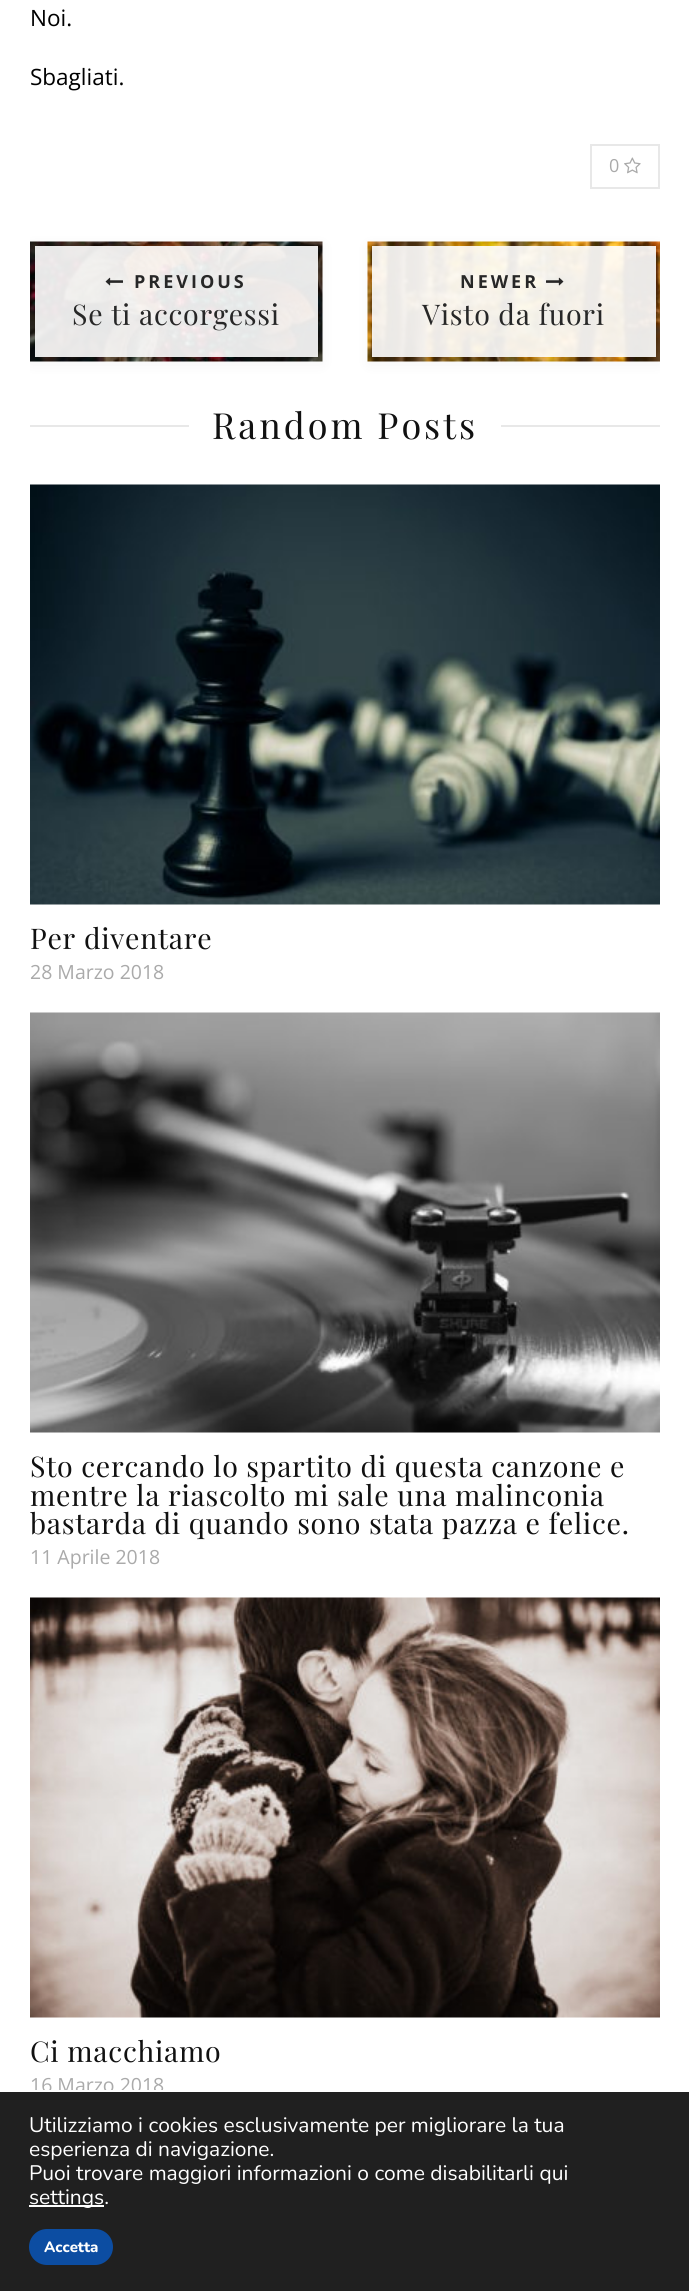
#include <cairo/cairo.h>
#include <math.h>
#include <stddef.h>

typedef struct { double x, y; const char *s; } line_t;
static cairo_t *cr;

static void rgb(unsigned color)
{
	cairo_set_source_rgb(cr, (color >> 16) / 255.0, (color >> 8 & 255) / 255.0, (color & 255) / 255.0);
}

static void tracked(double x, double y, const char *s, double letter, double word)
{
	cairo_move_to(cr, x, y);
	while (*s) {
		char ch[5] = {0};
		int n = 0;
		do ch[n++] = *s++; while ((*s & 0xC0) == 0x80);
		cairo_show_text(cr, ch);
		cairo_rel_move_to(cr, letter + word * (*ch == ' '), 0);
	}
}

static void rrect(double x, double y, double w, double h, double r)
{
	cairo_new_sub_path(cr);
	cairo_arc(cr, x + w - r, y + h - r, r, 0, M_PI / 2);
	cairo_arc(cr, x + r, y + h - r, r, M_PI / 2, M_PI);
	cairo_arc(cr, x + r, y + r, r, M_PI, 1.5 * M_PI);
	cairo_arc(cr, x + w - r, y + r, r, 1.5 * M_PI, 2 * M_PI);
	cairo_close_path(cr);
}

static void soft_shadow(double x, double y, double w, double h, double r, double blur, double alpha)
{
	cairo_push_group_with_content(cr, CAIRO_CONTENT_ALPHA);
	cairo_set_operator(cr, CAIRO_OPERATOR_SOURCE);
	for (int i = 15; i >= -15 && fmin(w, h) + blur * i / 3 > 0; i -= 2) {
		double e = blur * i / 6;
		cairo_set_source_rgba(cr, 0, 0, 0, alpha * erfc((i - 1) / 8.5) / 2);
		rrect(x - e, y - e, w + 2 * e, h + 2 * e, fmax(0, fmin(r + e + blur * .6, fmin(w, h) / 2 + e)));
		cairo_fill(cr);
	}
	cairo_pattern_t *soft = cairo_pop_group(cr);
	cairo_mask(cr, soft);
	cairo_pattern_destroy(soft);
}

static void image(const char *path, double x, double y, double w, double h)
{
	cairo_surface_t *image = cairo_image_surface_create_from_png(path);
	cairo_save(cr);
	cairo_set_source_surface(cr, image, x, y);
	cairo_rectangle(cr, x, y, w, h);
	cairo_fill(cr);
	cairo_restore(cr);
	cairo_surface_destroy(image);
}

int main(void) {
	cairo_surface_t *surface = cairo_image_surface_create(CAIRO_FORMAT_RGB24, 689, 2291);
	cr = cairo_create(surface);
	cairo_font_options_t *options = cairo_font_options_create();
	cairo_font_options_set_hint_metrics(options, CAIRO_HINT_METRICS_OFF);
	cairo_font_options_set_hint_style(options, CAIRO_HINT_STYLE_NONE);
	cairo_set_font_options(cr, options);
	cairo_set_miter_limit(cr, 4);
	rgb(0xffffff);
	cairo_paint(cr);
	cairo_rectangle(cr, 591, 145, 68, 43);
	rgb(0xe8e8e8);
	cairo_stroke(cr);
	image("img/1.png", 624, 157, 17, 17);
	cairo_save(cr);
	cairo_rectangle(cr, 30, 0, 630, 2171);
	cairo_clip(cr);
	rgb(0x000000);
	soft_shadow(30, 245, 293, 120, 0, 7.5, 0.04);
	cairo_restore(cr);
	image("img/2.png", 30, 241, 293, 121);
	cairo_set_source_rgba(cr, 1, 1, 1, 0.9);
	cairo_rectangle(cr, 35, 246, 283, 111);
	cairo_fill(cr);
	image("img/3.png", 105, 277, 18, 9);
	cairo_save(cr);
	cairo_rectangle(cr, 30, 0, 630, 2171);
	cairo_clip(cr);
	rgb(0x000000);
	soft_shadow(368, 245, 292, 120, 0, 7.5, 0.04);
	cairo_restore(cr);
	image("img/4.png", 367, 241, 293, 121);
	cairo_rectangle(cr, 372, 246, 284, 111);
	cairo_fill(cr);
	image("img/5.png", 546, 277, 18, 9);
	rgb(0xe8e8e8);
	cairo_rectangle(cr, 30, 425, 159, 2);
	cairo_fill(cr);
	cairo_rectangle(cr, 501, 425, 159, 2);
	cairo_fill(cr);
	image("img/6.png", 30, 484, 630, 421);
	image("img/7.png", 30, 1012, 630, 421);
	image("img/8.png", 30, 1597, 630, 421);
	cairo_select_font_face(cr, "Open Sans", CAIRO_FONT_SLANT_NORMAL, CAIRO_FONT_WEIGHT_NORMAL);
	cairo_set_font_size(cr, 22.5);
	rgb(0x000000);
	cairo_move_to(cr, 30, 26);
	cairo_show_text(cr, "Noi.");
	cairo_move_to(cr, 30, 85);
	cairo_show_text(cr, "Sbagliati.");
	cairo_set_font_size(cr, 18);
	rgb(0xaaaaaa);
	cairo_move_to(cr, 609, 172);
	cairo_show_text(cr, "0");
	cairo_select_font_face(cr, "Open Sans", CAIRO_FONT_SLANT_NORMAL, CAIRO_FONT_WEIGHT_BOLD);
	rgb(0x272727);
	tracked(134, 288, "PREVIOUS", 3, 0);
	cairo_select_font_face(cr, "Playfair Display", CAIRO_FONT_SLANT_NORMAL, CAIRO_FONT_WEIGHT_NORMAL);
	cairo_set_font_size(cr, 28.5);
	tracked(72, 325, "Se ti accorgessi", 0.75, 0);
	cairo_select_font_face(cr, "Open Sans", CAIRO_FONT_SLANT_NORMAL, CAIRO_FONT_WEIGHT_BOLD);
	cairo_set_font_size(cr, 18);
	tracked(460, 288, "NEWER", 3, 0);
	cairo_select_font_face(cr, "Playfair Display", CAIRO_FONT_SLANT_NORMAL, CAIRO_FONT_WEIGHT_NORMAL);
	cairo_set_font_size(cr, 28.5);
	tracked(422, 325, "Visto da fuori", 0.75, 0);
	cairo_set_font_size(cr, 36);
	rgb(0x111111);
	tracked(212, 439, "Random Posts", 3, 0);
	cairo_set_font_size(cr, 28.5);
	tracked(30, 949, "Per diventare", 0.75, 0);
	cairo_select_font_face(cr, "Open Sans", CAIRO_FONT_SLANT_NORMAL, CAIRO_FONT_WEIGHT_NORMAL);
	cairo_set_font_size(cr, 19.5);
	rgb(0xaaaaaa);
	cairo_move_to(cr, 30, 979);
	cairo_show_text(cr, "28 Marzo 2018");
	cairo_select_font_face(cr, "Playfair Display", CAIRO_FONT_SLANT_NORMAL, CAIRO_FONT_WEIGHT_NORMAL);
	cairo_set_font_size(cr, 28.5);
	rgb(0x111111);
	{
		static const line_t items[] = {
			{30, 1477, "Sto cercando lo spartito di questa canzone e"},
			{30, 1506, "mentre la riascolto mi sale una malinconia"},
			{30, 1534, "bastarda di quando sono stata pazza e felice."},
		};
		for (size_t i = 0; i < sizeof items / sizeof *items; i++) {
			tracked(items[i].x, items[i].y, items[i].s, 0.75, 0);
		}
	}
	cairo_select_font_face(cr, "Open Sans", CAIRO_FONT_SLANT_NORMAL, CAIRO_FONT_WEIGHT_NORMAL);
	cairo_set_font_size(cr, 19.5);
	rgb(0xaaaaaa);
	cairo_move_to(cr, 30, 1564);
	cairo_show_text(cr, "11 Aprile 2018");
	cairo_select_font_face(cr, "Playfair Display", CAIRO_FONT_SLANT_NORMAL, CAIRO_FONT_WEIGHT_NORMAL);
	cairo_set_font_size(cr, 28.5);
	rgb(0x111111);
	tracked(30, 2062, "Ci macchiamo", 0.75, 0);
	cairo_select_font_face(cr, "Open Sans", CAIRO_FONT_SLANT_NORMAL, CAIRO_FONT_WEIGHT_NORMAL);
	cairo_set_font_size(cr, 19.5);
	rgb(0xaaaaaa);
	cairo_move_to(cr, 30, 2092);
	cairo_show_text(cr, "16 Marzo 2018");
	rgb(0x202020);
	cairo_rectangle(cr, 0, 2092, 689, 199);
	cairo_fill(cr);
	rgb(0xffffff);
	cairo_rectangle(cr, 35, 2090, 128, 2);
	cairo_fill(cr);
	cairo_select_font_face(cr, "Nunito", CAIRO_FONT_SLANT_NORMAL, CAIRO_FONT_WEIGHT_NORMAL);
	cairo_set_font_size(cr, 21);
	{
		static const line_t items[] = {
			{29, 2132, "Utilizziamo i cookies esclusivamente per migliorare la tua"},
			{29, 2156, "esperienza di navigazione."},
			{29, 2180, "Puoi trovare maggiori informazioni o come disabilitarli qui"},
		};
		for (size_t i = 0; i < sizeof items / sizeof *items; i++) {
			cairo_move_to(cr, items[i].x, items[i].y);
			cairo_show_text(cr, items[i].s);
		}
	}
	cairo_rectangle(cr, 29, 2205, 75, 2);
	cairo_fill(cr);
	cairo_move_to(cr, 29, 2204);
	cairo_show_text(cr, "settings.");
	rgb(0x0c4da2);
	rrect(29, 2229, 84, 36, 18);
	cairo_fill(cr);
	cairo_select_font_face(cr, "Nunito ExtraBold", CAIRO_FONT_SLANT_NORMAL, CAIRO_FONT_WEIGHT_NORMAL);
	cairo_set_font_size(cr, 15);
	rgb(0xffffff);
	cairo_move_to(cr, 44, 2252);
	cairo_show_text(cr, "Accetta");
	cairo_surface_write_to_png(surface, "page.png");
	cairo_font_options_destroy(options);
	cairo_destroy(cr);
	cairo_surface_destroy(surface);
	return 0;
}
